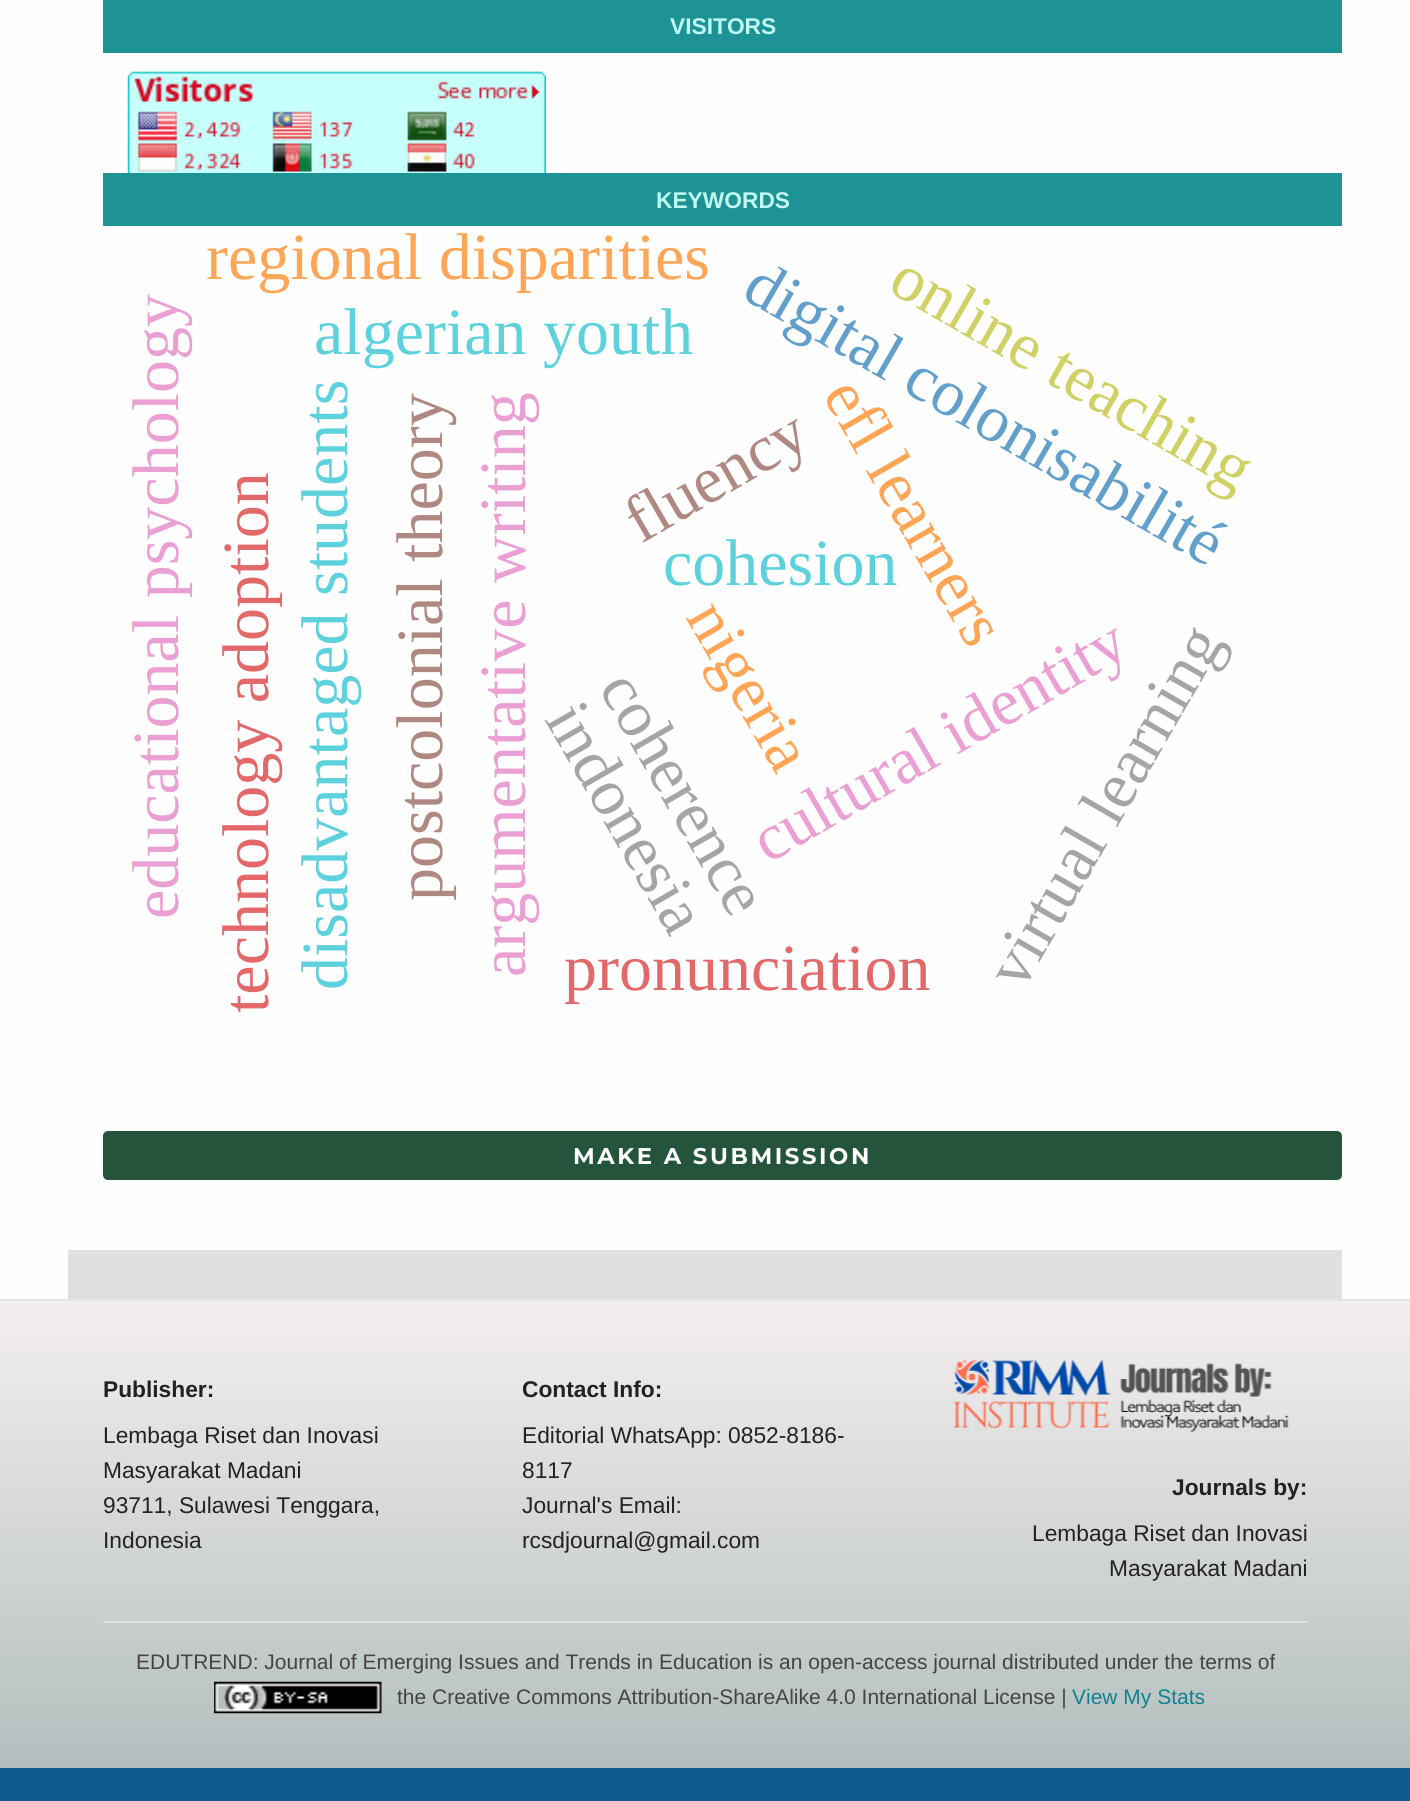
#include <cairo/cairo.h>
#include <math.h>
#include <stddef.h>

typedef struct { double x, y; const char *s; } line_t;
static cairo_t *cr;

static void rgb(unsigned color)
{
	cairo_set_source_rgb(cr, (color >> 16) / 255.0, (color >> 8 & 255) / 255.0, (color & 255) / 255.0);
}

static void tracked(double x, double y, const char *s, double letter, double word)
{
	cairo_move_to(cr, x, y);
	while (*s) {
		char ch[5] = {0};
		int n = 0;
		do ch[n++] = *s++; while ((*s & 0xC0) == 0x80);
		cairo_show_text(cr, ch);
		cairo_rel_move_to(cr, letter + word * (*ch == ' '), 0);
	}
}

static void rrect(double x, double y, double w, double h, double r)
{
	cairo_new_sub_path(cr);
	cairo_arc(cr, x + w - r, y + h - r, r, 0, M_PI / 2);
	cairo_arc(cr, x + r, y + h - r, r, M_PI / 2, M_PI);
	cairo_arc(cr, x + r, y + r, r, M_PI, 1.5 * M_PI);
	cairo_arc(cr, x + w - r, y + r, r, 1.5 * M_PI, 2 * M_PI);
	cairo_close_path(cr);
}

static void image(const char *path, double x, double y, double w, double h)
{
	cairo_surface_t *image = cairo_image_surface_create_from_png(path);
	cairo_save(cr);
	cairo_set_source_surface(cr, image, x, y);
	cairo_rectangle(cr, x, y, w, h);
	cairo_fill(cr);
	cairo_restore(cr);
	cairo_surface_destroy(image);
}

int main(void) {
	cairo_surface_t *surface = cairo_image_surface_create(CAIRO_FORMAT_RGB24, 1410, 1801);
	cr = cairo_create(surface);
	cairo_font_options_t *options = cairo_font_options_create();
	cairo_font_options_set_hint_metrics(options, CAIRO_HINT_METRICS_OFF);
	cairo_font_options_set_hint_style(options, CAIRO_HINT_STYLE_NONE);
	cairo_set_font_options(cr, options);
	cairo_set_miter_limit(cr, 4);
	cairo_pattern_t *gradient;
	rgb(0xfefefe);
	cairo_paint(cr);
	rgb(0xe0e0e0);
	cairo_rectangle(cr, 68, 1250, 1274, 49);
	cairo_fill(cr);
	rgb(0x1d9395);
	cairo_rectangle(cr, 103, 0, 1239, 53);
	cairo_fill(cr);
	image("img/1.png", 127, 71, 419, 102);
	cairo_rectangle(cr, 103, 173, 1239, 53);
	cairo_fill(cr);
	rgb(0x24543b);
	rrect(103, 1131, 1239, 49, 5);
	cairo_fill(cr);
	gradient = cairo_pattern_create_linear(705, 1768, 705, 1300);
	cairo_pattern_add_color_stop_rgba(gradient, 0, 0.706, 0.745, 0.745, 1);
	cairo_pattern_add_color_stop_rgba(gradient, 1, 0.957, 0.937, 0.937, 1);
	cairo_set_source(cr, gradient);
	cairo_pattern_destroy(gradient);
	cairo_rectangle(cr, 0, 1301, 1410, 467);
	cairo_fill(cr);
	rgb(0xe5e5e5);
	cairo_rectangle(cr, 0, 1299, 1410, 2);
	cairo_fill(cr);
	rgb(0x0f5a8f);
	cairo_rectangle(cr, 0, 1768, 1410, 33);
	cairo_fill(cr);
	image("img/2.png", 952, 1359, 337, 74);
	rgb(0xe0e0e0);
	cairo_rectangle(cr, 103, 1621, 1204, 2);
	cairo_fill(cr);
	image("img/3.png", 214, 1681, 168, 33);
	cairo_select_font_face(cr, "Liberation Sans", CAIRO_FONT_SLANT_NORMAL, CAIRO_FONT_WEIGHT_BOLD);
	cairo_set_font_size(cr, 22.75);
	rgb(0xbffaf5);
	cairo_move_to(cr, 670, 34);
	cairo_show_text(cr, "VISITORS");
	cairo_move_to(cr, 656, 208);
	cairo_show_text(cr, "KEYWORDS");
	cairo_select_font_face(cr, "Liberation Serif", CAIRO_FONT_SLANT_NORMAL, CAIRO_FONT_WEIGHT_NORMAL);
	cairo_set_font_size(cr, 66);
	rgb(0xffa556);
	cairo_move_to(cr, 206, 279);
	cairo_show_text(cr, "regional disparities");
	rgb(0xeba0d4);
	cairo_save(cr);
	cairo_translate(cr, 178, 919);
	cairo_rotate(cr, -90 * M_PI / 180);
	cairo_move_to(cr, 0, 0);
	cairo_show_text(cr, "educational psychology");
	cairo_restore(cr);
	rgb(0x5dd2dd);
	cairo_move_to(cr, 314, 354);
	cairo_show_text(cr, "algerian youth");
	rgb(0xe26869);
	cairo_save(cr);
	cairo_translate(cr, 268, 1013);
	cairo_rotate(cr, -90 * M_PI / 180);
	cairo_move_to(cr, 0, 0);
	cairo_show_text(cr, "technology adoption");
	cairo_restore(cr);
	rgb(0x5dd2dd);
	cairo_save(cr);
	cairo_translate(cr, 347, 990);
	cairo_rotate(cr, -90 * M_PI / 180);
	cairo_move_to(cr, 0, 0);
	cairo_show_text(cr, "disadvantaged students");
	cairo_restore(cr);
	rgb(0xaf8981);
	cairo_save(cr);
	cairo_translate(cr, 442, 901);
	cairo_rotate(cr, -90 * M_PI / 180);
	cairo_move_to(cr, 0, 0);
	cairo_show_text(cr, "postcolonial theory");
	cairo_restore(cr);
	rgb(0xeba0d4);
	cairo_save(cr);
	cairo_translate(cr, 525, 977);
	cairo_rotate(cr, -90 * M_PI / 180);
	cairo_move_to(cr, 0, 0);
	cairo_show_text(cr, "argumentative writing");
	cairo_restore(cr);
	rgb(0x5dd2dd);
	cairo_move_to(cr, 663, 585);
	cairo_show_text(cr, "cohesion");
	rgb(0xffa556);
	cairo_save(cr);
	cairo_translate(cr, 822, 395);
	cairo_rotate(cr, 60 * M_PI / 180);
	cairo_move_to(cr, 0, 0);
	cairo_show_text(cr, "efl learners");
	cairo_restore(cr);
	rgb(0x62a0cb);
	cairo_save(cr);
	cairo_translate(cr, 740, 297);
	cairo_rotate(cr, 30 * M_PI / 180);
	cairo_move_to(cr, 0, 0);
	cairo_show_text(cr, "digital colonisabilité");
	cairo_restore(cr);
	rgb(0xaf8981);
	cairo_save(cr);
	cairo_translate(cr, 641, 544);
	cairo_rotate(cr, -30 * M_PI / 180);
	cairo_move_to(cr, 0, 0);
	cairo_show_text(cr, "fluency");
	cairo_restore(cr);
	rgb(0xd0d164);
	cairo_save(cr);
	cairo_translate(cr, 886, 290);
	cairo_rotate(cr, 30 * M_PI / 180);
	cairo_move_to(cr, 0, 0);
	cairo_show_text(cr, "online teaching");
	cairo_restore(cr);
	rgb(0xa5a5a5);
	cairo_save(cr);
	cairo_translate(cr, 598, 688);
	cairo_rotate(cr, 60 * M_PI / 180);
	cairo_move_to(cr, 0, 0);
	cairo_show_text(cr, "coherence");
	cairo_restore(cr);
	rgb(0xeba0d4);
	cairo_save(cr);
	cairo_translate(cr, 768, 864);
	cairo_rotate(cr, -30 * M_PI / 180);
	cairo_move_to(cr, 0, 0);
	cairo_show_text(cr, "cultural identity");
	cairo_restore(cr);
	rgb(0xa5a5a5);
	cairo_save(cr);
	cairo_translate(cr, 1022, 992);
	cairo_rotate(cr, -60 * M_PI / 180);
	cairo_move_to(cr, 0, 0);
	cairo_show_text(cr, "virtual learning");
	cairo_restore(cr);
	cairo_save(cr);
	cairo_translate(cr, 544, 719);
	cairo_rotate(cr, 60 * M_PI / 180);
	cairo_move_to(cr, 0, 0);
	cairo_show_text(cr, "indonesia");
	cairo_restore(cr);
	rgb(0xffa556);
	cairo_save(cr);
	cairo_translate(cr, 685, 617);
	cairo_rotate(cr, 60 * M_PI / 180);
	cairo_move_to(cr, 0, 0);
	cairo_show_text(cr, "nigeria");
	cairo_restore(cr);
	rgb(0xe26869);
	cairo_move_to(cr, 564, 990);
	cairo_show_text(cr, "pronunciation");
	cairo_select_font_face(cr, "Montserrat", CAIRO_FONT_SLANT_NORMAL, CAIRO_FONT_WEIGHT_BOLD);
	cairo_set_font_size(cr, 22.75);
	rgb(0xffffff);
	tracked(573, 1164, "MAKE A SUBMISSION", 2.6, 0);
	cairo_select_font_face(cr, "Liberation Sans", CAIRO_FONT_SLANT_NORMAL, CAIRO_FONT_WEIGHT_BOLD);
	rgb(0x222222);
	cairo_move_to(cr, 103, 1397);
	cairo_show_text(cr, "Publisher:");
	cairo_select_font_face(cr, "Liberation Sans", CAIRO_FONT_SLANT_NORMAL, CAIRO_FONT_WEIGHT_NORMAL);
	{
		static const line_t items[] = {
			{103, 1443, "Lembaga Riset dan Inovasi"},
			{103, 1478, "Masyarakat Madani"},
			{103, 1513, "93711, Sulawesi Tenggara,"},
			{103, 1548, "Indonesia"},
		};
		for (size_t i = 0; i < sizeof items / sizeof *items; i++) {
			cairo_move_to(cr, items[i].x, items[i].y);
			cairo_show_text(cr, items[i].s);
		}
	}
	cairo_select_font_face(cr, "Liberation Sans", CAIRO_FONT_SLANT_NORMAL, CAIRO_FONT_WEIGHT_BOLD);
	cairo_move_to(cr, 522, 1397);
	cairo_show_text(cr, "Contact Info:");
	cairo_select_font_face(cr, "Liberation Sans", CAIRO_FONT_SLANT_NORMAL, CAIRO_FONT_WEIGHT_NORMAL);
	{
		static const line_t items[] = {
			{522, 1443, "Editorial WhatsApp: 0852-8186-"},
			{522, 1478, "8117"},
			{522, 1513, "Journal's Email:"},
			{522, 1548, "rcsdjournal@gmail.com"},
		};
		for (size_t i = 0; i < sizeof items / sizeof *items; i++) {
			cairo_move_to(cr, items[i].x, items[i].y);
			cairo_show_text(cr, items[i].s);
		}
	}
	cairo_select_font_face(cr, "Liberation Sans", CAIRO_FONT_SLANT_NORMAL, CAIRO_FONT_WEIGHT_BOLD);
	cairo_move_to(cr, 1172, 1495);
	cairo_show_text(cr, "Journals by:");
	cairo_select_font_face(cr, "Liberation Sans", CAIRO_FONT_SLANT_NORMAL, CAIRO_FONT_WEIGHT_NORMAL);
	cairo_move_to(cr, 1032, 1541);
	cairo_show_text(cr, "Lembaga Riset dan Inovasi");
	cairo_move_to(cr, 1109, 1576);
	cairo_show_text(cr, "Masyarakat Madani");
	cairo_set_font_size(cr, 21);
	rgb(0x444444);
	cairo_move_to(cr, 136, 1669);
	cairo_show_text(cr, "EDUTREND: Journal of Emerging Issues and Trends in Education is an open-access journal distributed under the terms of");
	cairo_move_to(cr, 397, 1704);
	cairo_show_text(cr, "the Creative Commons Attribution-ShareAlike 4.0 International License |");
	rgb(0x0f838f);
	cairo_move_to(cr, 1072, 1704);
	cairo_show_text(cr, "View My Stats");
	cairo_surface_write_to_png(surface, "page.png");
	cairo_font_options_destroy(options);
	cairo_destroy(cr);
	cairo_surface_destroy(surface);
	return 0;
}
